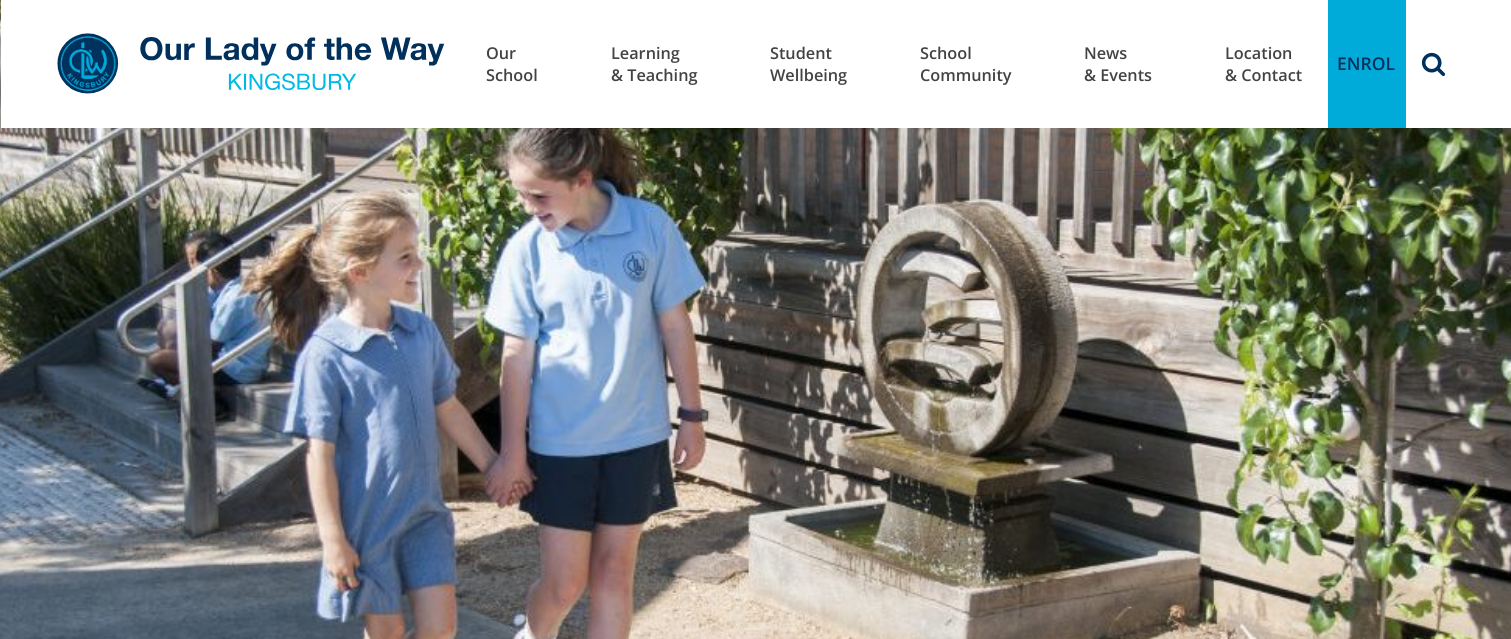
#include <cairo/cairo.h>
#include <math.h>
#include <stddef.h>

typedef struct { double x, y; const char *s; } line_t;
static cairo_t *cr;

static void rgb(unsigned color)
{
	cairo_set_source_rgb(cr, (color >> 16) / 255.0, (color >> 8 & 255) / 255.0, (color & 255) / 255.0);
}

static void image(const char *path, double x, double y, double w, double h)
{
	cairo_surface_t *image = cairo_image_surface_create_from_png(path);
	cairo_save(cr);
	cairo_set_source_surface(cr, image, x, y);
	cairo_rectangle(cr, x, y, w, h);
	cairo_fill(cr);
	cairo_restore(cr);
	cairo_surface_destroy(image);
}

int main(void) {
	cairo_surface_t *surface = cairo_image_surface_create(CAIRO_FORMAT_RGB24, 1511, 639);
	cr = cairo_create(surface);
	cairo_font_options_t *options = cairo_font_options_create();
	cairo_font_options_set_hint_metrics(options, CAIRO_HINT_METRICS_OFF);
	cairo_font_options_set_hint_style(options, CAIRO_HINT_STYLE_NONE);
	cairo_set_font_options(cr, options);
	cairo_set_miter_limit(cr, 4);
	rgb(0xffffff);
	cairo_paint(cr);
	image("img/1.png", 0, 0, 1511, 639);
	rgb(0xffffff);
	cairo_rectangle(cr, 1, 0, 1510, 128);
	cairo_fill(cr);
	image("img/2.png", 57, 33, 388, 61);
	rgb(0x00abda);
	cairo_rectangle(cr, 1328, 0, 78, 128);
	cairo_fill(cr);
	image("img/3.png", 1421, 52, 25, 25);
	cairo_select_font_face(cr, "Open Sans SemiBold", CAIRO_FONT_SLANT_NORMAL, CAIRO_FONT_WEIGHT_NORMAL);
	cairo_set_font_size(cr, 16.25);
	rgb(0x434343);
	{
		static const line_t items[] = {
			{486, 59, "Our"},
			{486, 81, "School"},
			{611, 59, "Learning"},
			{611, 81, "& Teaching"},
			{770, 59, "Student"},
			{770, 81, "Wellbeing"},
			{920, 59, "School"},
			{920, 81, "Community"},
			{1084, 59, "News"},
			{1084, 81, "& Events"},
			{1225, 59, "Location"},
			{1225, 81, "& Contact"},
		};
		for (size_t i = 0; i < sizeof items / sizeof *items; i++) {
			cairo_move_to(cr, items[i].x, items[i].y);
			cairo_show_text(cr, items[i].s);
		}
	}
	cairo_set_font_size(cr, 17.5);
	rgb(0x01305d);
	cairo_move_to(cr, 1337, 70);
	cairo_show_text(cr, "ENROL");
	cairo_surface_write_to_png(surface, "page.png");
	cairo_font_options_destroy(options);
	cairo_destroy(cr);
	cairo_surface_destroy(surface);
	return 0;
}
